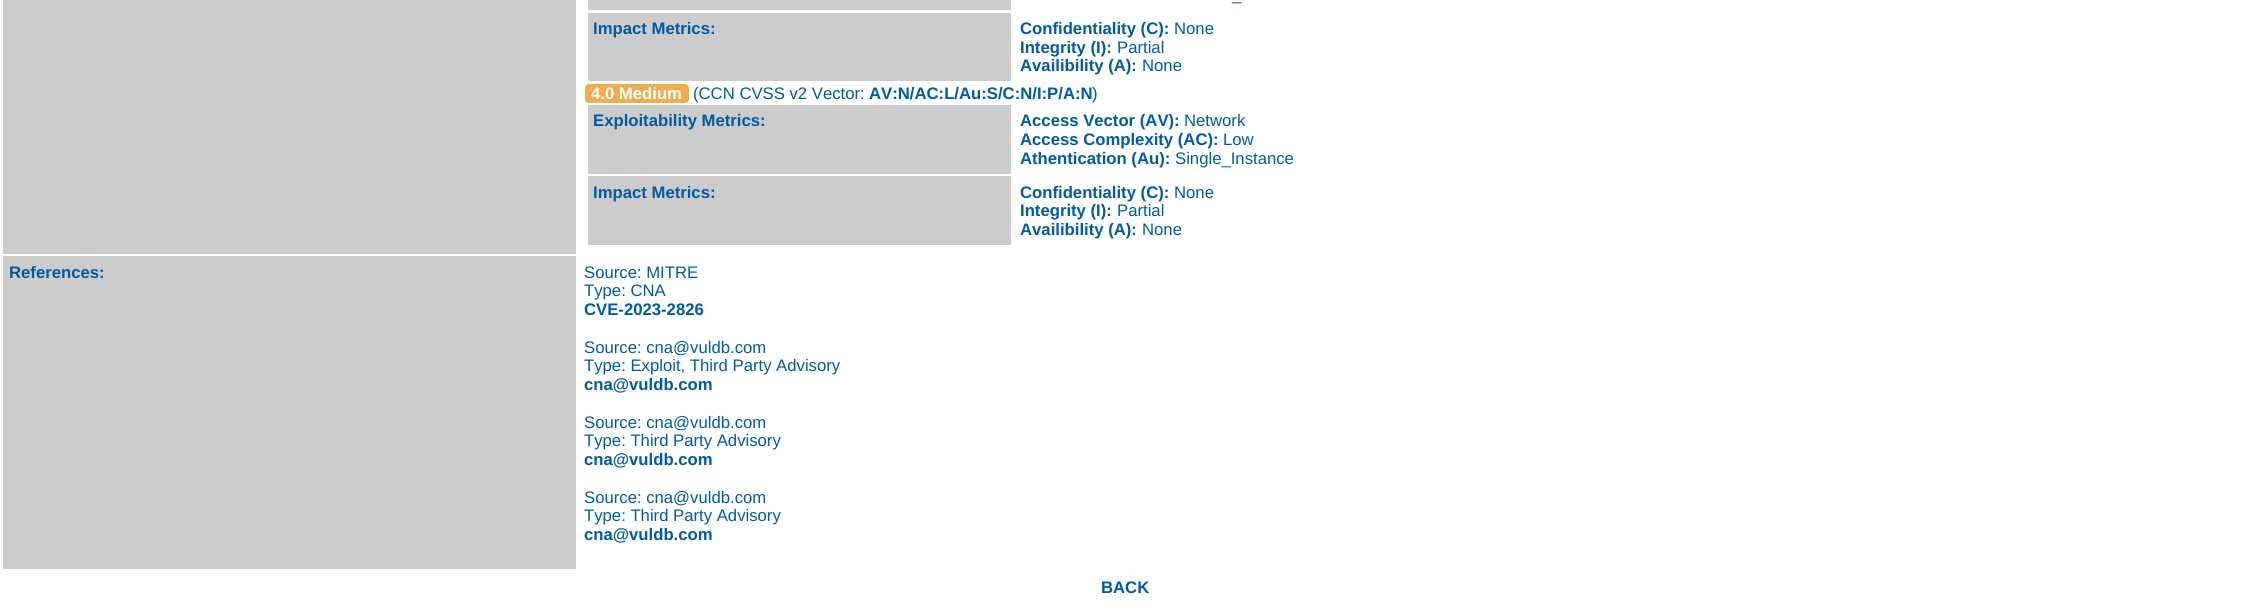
#include <cairo/cairo.h>
#include <math.h>
#include <stddef.h>

typedef struct { double x, y, w, h; unsigned color; } box_t;
static cairo_t *cr;

static void rgb(unsigned color)
{
	cairo_set_source_rgb(cr, (color >> 16) / 255.0, (color >> 8 & 255) / 255.0, (color & 255) / 255.0);
}

static void rrect(double x, double y, double w, double h, double r)
{
	cairo_new_sub_path(cr);
	cairo_arc(cr, x + w - r, y + h - r, r, 0, M_PI / 2);
	cairo_arc(cr, x + r, y + h - r, r, M_PI / 2, M_PI);
	cairo_arc(cr, x + r, y + r, r, M_PI, 1.5 * M_PI);
	cairo_arc(cr, x + w - r, y + r, r, 1.5 * M_PI, 2 * M_PI);
	cairo_close_path(cr);
}

int main(void) {
	cairo_surface_t *surface = cairo_image_surface_create(CAIRO_FORMAT_RGB24, 2250, 605);
	cr = cairo_create(surface);
	cairo_font_options_t *options = cairo_font_options_create();
	cairo_font_options_set_hint_metrics(options, CAIRO_HINT_METRICS_OFF);
	cairo_font_options_set_hint_style(options, CAIRO_HINT_STYLE_NONE);
	cairo_set_font_options(cr, options);
	cairo_set_miter_limit(cr, 4);
	rgb(0xffffff);
	cairo_paint(cr);
	{
		static const box_t items[] = {
			{3, 0, 573, 254, 0xcccccc},
			{588, 0, 423, 10, 0xcccccc},
			{588, 13, 423, 68, 0xcccccc},
		};
		for (size_t i = 0; i < sizeof items / sizeof *items; i++) {
			rgb(items[i].color);
			cairo_rectangle(cr, items[i].x, items[i].y, items[i].w, items[i].h);
			cairo_fill(cr);
		}
	}
	rgb(0xf0ad4e);
	rrect(585, 84, 104, 19, 4);
	cairo_fill(cr);
	{
		static const box_t items[] = {
			{588, 105, 423, 69, 0xcccccc},
			{588, 176, 423, 69, 0xcccccc},
			{3, 256, 573, 313, 0xcccccc},
		};
		for (size_t i = 0; i < sizeof items / sizeof *items; i++) {
			rgb(items[i].color);
			cairo_rectangle(cr, items[i].x, items[i].y, items[i].w, items[i].h);
			cairo_fill(cr);
		}
	}
	cairo_select_font_face(cr, "Liberation Sans", CAIRO_FONT_SLANT_NORMAL, CAIRO_FONT_WEIGHT_NORMAL);
	cairo_set_font_size(cr, 16.7);
	rgb(0x005aa5);
	cairo_move_to(cr, 1232, 0);
	cairo_show_text(cr, "_");
	cairo_select_font_face(cr, "Liberation Sans", CAIRO_FONT_SLANT_NORMAL, CAIRO_FONT_WEIGHT_BOLD);
	cairo_move_to(cr, 593, 34);
	cairo_show_text(cr, "Impact Metrics:");
	cairo_move_to(cr, 1020, 34);
	cairo_show_text(cr, "Confidentiality (C):");
	cairo_select_font_face(cr, "Liberation Sans", CAIRO_FONT_SLANT_NORMAL, CAIRO_FONT_WEIGHT_NORMAL);
	cairo_move_to(cr, 1174, 34);
	cairo_show_text(cr, "None");
	cairo_select_font_face(cr, "Liberation Sans", CAIRO_FONT_SLANT_NORMAL, CAIRO_FONT_WEIGHT_BOLD);
	cairo_move_to(cr, 1020, 53);
	cairo_show_text(cr, "Integrity (I):");
	cairo_select_font_face(cr, "Liberation Sans", CAIRO_FONT_SLANT_NORMAL, CAIRO_FONT_WEIGHT_NORMAL);
	cairo_move_to(cr, 1117, 53);
	cairo_show_text(cr, "Partial");
	cairo_select_font_face(cr, "Liberation Sans", CAIRO_FONT_SLANT_NORMAL, CAIRO_FONT_WEIGHT_BOLD);
	cairo_move_to(cr, 1020, 71);
	cairo_show_text(cr, "Availibility (A):");
	cairo_select_font_face(cr, "Liberation Sans", CAIRO_FONT_SLANT_NORMAL, CAIRO_FONT_WEIGHT_NORMAL);
	cairo_move_to(cr, 1142, 71);
	cairo_show_text(cr, "None");
	cairo_select_font_face(cr, "Liberation Sans", CAIRO_FONT_SLANT_NORMAL, CAIRO_FONT_WEIGHT_BOLD);
	rgb(0xffffff);
	cairo_move_to(cr, 591, 99);
	cairo_show_text(cr, "4.0 Medium");
	cairo_select_font_face(cr, "Liberation Sans", CAIRO_FONT_SLANT_NORMAL, CAIRO_FONT_WEIGHT_NORMAL);
	rgb(0x005aa5);
	cairo_move_to(cr, 693, 99);
	cairo_show_text(cr, "(CCN CVSS v2 Vector:");
	cairo_select_font_face(cr, "Liberation Sans", CAIRO_FONT_SLANT_NORMAL, CAIRO_FONT_WEIGHT_BOLD);
	cairo_move_to(cr, 869, 99);
	cairo_show_text(cr, "AV:N/AC:L/Au:S/C:N/I:P/A:N");
	cairo_select_font_face(cr, "Liberation Sans", CAIRO_FONT_SLANT_NORMAL, CAIRO_FONT_WEIGHT_NORMAL);
	cairo_move_to(cr, 1092, 99);
	cairo_show_text(cr, ")");
	cairo_select_font_face(cr, "Liberation Sans", CAIRO_FONT_SLANT_NORMAL, CAIRO_FONT_WEIGHT_BOLD);
	cairo_move_to(cr, 593, 126);
	cairo_show_text(cr, "Exploitability Metrics:");
	cairo_move_to(cr, 1020, 126);
	cairo_show_text(cr, "Access Vector (AV):");
	cairo_select_font_face(cr, "Liberation Sans", CAIRO_FONT_SLANT_NORMAL, CAIRO_FONT_WEIGHT_NORMAL);
	cairo_move_to(cr, 1184, 126);
	cairo_show_text(cr, "Network");
	cairo_select_font_face(cr, "Liberation Sans", CAIRO_FONT_SLANT_NORMAL, CAIRO_FONT_WEIGHT_BOLD);
	cairo_move_to(cr, 1020, 145);
	cairo_show_text(cr, "Access Complexity (AC):");
	cairo_select_font_face(cr, "Liberation Sans", CAIRO_FONT_SLANT_NORMAL, CAIRO_FONT_WEIGHT_NORMAL);
	cairo_move_to(cr, 1223, 145);
	cairo_show_text(cr, "Low");
	cairo_select_font_face(cr, "Liberation Sans", CAIRO_FONT_SLANT_NORMAL, CAIRO_FONT_WEIGHT_BOLD);
	cairo_move_to(cr, 1020, 164);
	cairo_show_text(cr, "Athentication (Au):");
	cairo_select_font_face(cr, "Liberation Sans", CAIRO_FONT_SLANT_NORMAL, CAIRO_FONT_WEIGHT_NORMAL);
	cairo_move_to(cr, 1175, 164);
	cairo_show_text(cr, "Single_Instance");
	cairo_select_font_face(cr, "Liberation Sans", CAIRO_FONT_SLANT_NORMAL, CAIRO_FONT_WEIGHT_BOLD);
	cairo_move_to(cr, 593, 198);
	cairo_show_text(cr, "Impact Metrics:");
	cairo_move_to(cr, 1020, 198);
	cairo_show_text(cr, "Confidentiality (C):");
	cairo_select_font_face(cr, "Liberation Sans", CAIRO_FONT_SLANT_NORMAL, CAIRO_FONT_WEIGHT_NORMAL);
	cairo_move_to(cr, 1174, 198);
	cairo_show_text(cr, "None");
	cairo_select_font_face(cr, "Liberation Sans", CAIRO_FONT_SLANT_NORMAL, CAIRO_FONT_WEIGHT_BOLD);
	cairo_move_to(cr, 1020, 216);
	cairo_show_text(cr, "Integrity (I):");
	cairo_select_font_face(cr, "Liberation Sans", CAIRO_FONT_SLANT_NORMAL, CAIRO_FONT_WEIGHT_NORMAL);
	cairo_move_to(cr, 1117, 216);
	cairo_show_text(cr, "Partial");
	cairo_select_font_face(cr, "Liberation Sans", CAIRO_FONT_SLANT_NORMAL, CAIRO_FONT_WEIGHT_BOLD);
	cairo_move_to(cr, 1020, 235);
	cairo_show_text(cr, "Availibility (A):");
	cairo_select_font_face(cr, "Liberation Sans", CAIRO_FONT_SLANT_NORMAL, CAIRO_FONT_WEIGHT_NORMAL);
	cairo_move_to(cr, 1142, 235);
	cairo_show_text(cr, "None");
	cairo_select_font_face(cr, "Liberation Sans", CAIRO_FONT_SLANT_NORMAL, CAIRO_FONT_WEIGHT_BOLD);
	cairo_move_to(cr, 9, 278);
	cairo_show_text(cr, "References:");
	cairo_select_font_face(cr, "Liberation Sans", CAIRO_FONT_SLANT_NORMAL, CAIRO_FONT_WEIGHT_NORMAL);
	cairo_move_to(cr, 584, 278);
	cairo_show_text(cr, "Source: MITRE");
	cairo_move_to(cr, 584, 296);
	cairo_show_text(cr, "Type: CNA");
	cairo_select_font_face(cr, "Liberation Sans", CAIRO_FONT_SLANT_NORMAL, CAIRO_FONT_WEIGHT_BOLD);
	cairo_move_to(cr, 584, 315);
	cairo_show_text(cr, "CVE-2023-2826");
	cairo_select_font_face(cr, "Liberation Sans", CAIRO_FONT_SLANT_NORMAL, CAIRO_FONT_WEIGHT_NORMAL);
	cairo_move_to(cr, 584, 353);
	cairo_show_text(cr, "Source: cna@vuldb.com");
	cairo_move_to(cr, 584, 371);
	cairo_show_text(cr, "Type: Exploit, Third Party Advisory");
	cairo_select_font_face(cr, "Liberation Sans", CAIRO_FONT_SLANT_NORMAL, CAIRO_FONT_WEIGHT_BOLD);
	cairo_move_to(cr, 584, 390);
	cairo_show_text(cr, "cna@vuldb.com");
	cairo_select_font_face(cr, "Liberation Sans", CAIRO_FONT_SLANT_NORMAL, CAIRO_FONT_WEIGHT_NORMAL);
	cairo_move_to(cr, 584, 428);
	cairo_show_text(cr, "Source: cna@vuldb.com");
	cairo_move_to(cr, 584, 446);
	cairo_show_text(cr, "Type: Third Party Advisory");
	cairo_select_font_face(cr, "Liberation Sans", CAIRO_FONT_SLANT_NORMAL, CAIRO_FONT_WEIGHT_BOLD);
	cairo_move_to(cr, 584, 465);
	cairo_show_text(cr, "cna@vuldb.com");
	cairo_select_font_face(cr, "Liberation Sans", CAIRO_FONT_SLANT_NORMAL, CAIRO_FONT_WEIGHT_NORMAL);
	cairo_move_to(cr, 584, 503);
	cairo_show_text(cr, "Source: cna@vuldb.com");
	cairo_move_to(cr, 584, 521);
	cairo_show_text(cr, "Type: Third Party Advisory");
	cairo_select_font_face(cr, "Liberation Sans", CAIRO_FONT_SLANT_NORMAL, CAIRO_FONT_WEIGHT_BOLD);
	cairo_move_to(cr, 584, 540);
	cairo_show_text(cr, "cna@vuldb.com");
	cairo_move_to(cr, 1101, 593);
	cairo_show_text(cr, "BACK");
	cairo_surface_write_to_png(surface, "page.png");
	cairo_font_options_destroy(options);
	cairo_destroy(cr);
	cairo_surface_destroy(surface);
	return 0;
}
